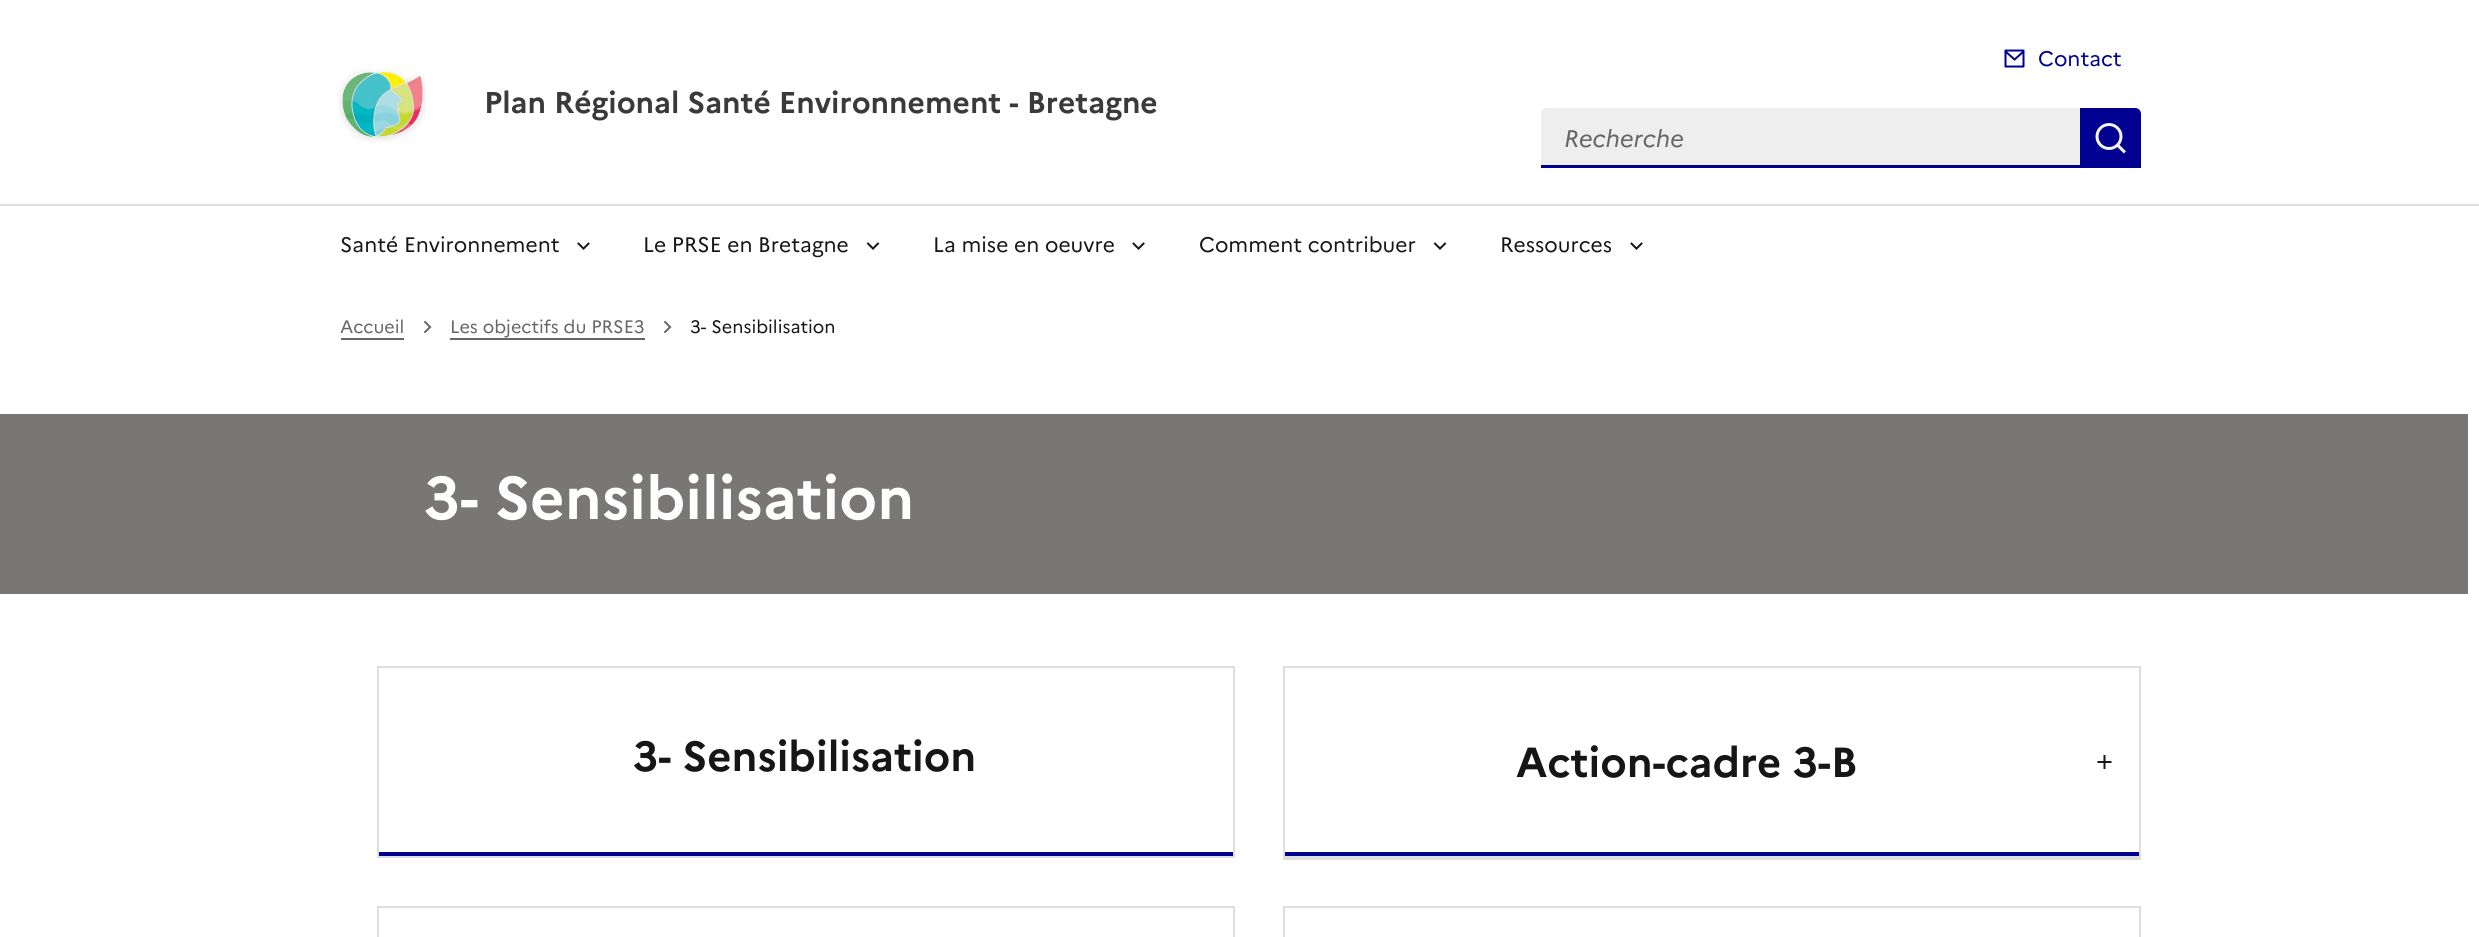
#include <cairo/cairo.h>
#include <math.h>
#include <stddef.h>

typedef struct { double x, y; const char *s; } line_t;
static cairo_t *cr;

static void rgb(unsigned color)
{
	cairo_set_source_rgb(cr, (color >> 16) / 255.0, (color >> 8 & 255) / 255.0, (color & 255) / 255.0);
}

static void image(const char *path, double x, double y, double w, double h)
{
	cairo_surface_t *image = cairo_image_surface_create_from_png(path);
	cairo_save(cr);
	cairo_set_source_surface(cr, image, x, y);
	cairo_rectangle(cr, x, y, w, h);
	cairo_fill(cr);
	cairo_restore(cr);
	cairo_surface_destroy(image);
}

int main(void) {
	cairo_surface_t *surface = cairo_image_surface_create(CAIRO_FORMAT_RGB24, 2479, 937);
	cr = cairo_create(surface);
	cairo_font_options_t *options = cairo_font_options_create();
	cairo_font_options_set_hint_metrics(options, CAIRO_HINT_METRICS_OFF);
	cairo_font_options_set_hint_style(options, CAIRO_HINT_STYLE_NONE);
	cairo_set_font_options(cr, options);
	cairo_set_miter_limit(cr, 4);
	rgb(0xffffff);
	cairo_paint(cr);
	image("img/1.png", 338, 69, 88, 73);
	image("img/2.png", 2004, 49, 21, 19);
	rgb(0xeeeeee);
	cairo_new_path(cr);
	cairo_move_to(cr, 1547, 108);
	cairo_line_to(cr, 2081, 108);
	cairo_line_to(cr, 2081, 168);
	cairo_line_to(cr, 1541, 168);
	cairo_line_to(cr, 1541, 114);
	cairo_curve_to(cr, 1541, 110.5, 1543.5, 108, 1547, 108);
	cairo_close_path(cr);
	cairo_fill(cr);
	rgb(0x000091);
	cairo_new_path(cr);
	cairo_move_to(cr, 1541, 165);
	cairo_line_to(cr, 1541, 168);
	cairo_line_to(cr, 2081, 168);
	cairo_line_to(cr, 2081, 108);
	cairo_line_to(cr, 2080, 108);
	cairo_line_to(cr, 2080, 165);
	cairo_close_path(cr);
	cairo_fill(cr);
	cairo_new_path(cr);
	cairo_move_to(cr, 2081, 108);
	cairo_line_to(cr, 2135, 108);
	cairo_curve_to(cr, 2138.5, 108, 2141, 110.5, 2141, 114);
	cairo_line_to(cr, 2141, 168);
	cairo_line_to(cr, 2081, 168);
	cairo_close_path(cr);
	cairo_fill(cr);
	image("img/3.png", 2095, 123, 31, 31);
	rgb(0xdddddd);
	cairo_rectangle(cr, 0, 204, 2479, 2);
	cairo_fill(cr);
	image("img/4.png", 577, 242, 13, 8);
	image("img/5.png", 866, 242, 14, 8);
	image("img/4.png", 1132, 242, 13, 8);
	image("img/5.png", 1433, 242, 14, 8);
	image("img/4.png", 1630, 242, 13, 8);
	rgb(0x666666);
	cairo_rectangle(cr, 341, 338, 63, 2);
	cairo_fill(cr);
	image("img/6.png", 423, 320, 9, 14);
	cairo_rectangle(cr, 450, 338, 195, 2);
	cairo_fill(cr);
	image("img/6.png", 663, 320, 9, 14);
	rgb(0x797676);
	cairo_rectangle(cr, 0, 414, 2468, 180);
	cairo_fill(cr);
	rgb(0x000091);
	cairo_rectangle(cr, 377, 852, 858, 4);
	cairo_fill(cr);
	cairo_rectangle(cr, 378, 667, 856, 190);
	rgb(0xdddddd);
	cairo_stroke(cr);
	rgb(0x000091);
	cairo_rectangle(cr, 1283, 852, 858, 4);
	cairo_fill(cr);
	cairo_rectangle(cr, 1284, 667, 856, 190);
	rgb(0xdddddd);
	cairo_stroke(cr);
	cairo_rectangle(cr, 378, 907, 856, 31);
	cairo_stroke(cr);
	cairo_rectangle(cr, 1284, 907, 856, 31);
	cairo_stroke(cr);
	cairo_select_font_face(cr, "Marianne", CAIRO_FONT_SLANT_NORMAL, CAIRO_FONT_WEIGHT_BOLD);
	cairo_set_font_size(cr, 30);
	rgb(0x3a3a3a);
	cairo_move_to(cr, 484, 113);
	cairo_show_text(cr, "Plan Régional Santé Environnement - Bretagne");
	cairo_select_font_face(cr, "Marianne", CAIRO_FONT_SLANT_NORMAL, CAIRO_FONT_WEIGHT_NORMAL);
	cairo_set_font_size(cr, 21);
	rgb(0x000091);
	cairo_move_to(cr, 2038, 66);
	cairo_show_text(cr, "Contact");
	cairo_select_font_face(cr, "Marianne", CAIRO_FONT_SLANT_ITALIC, CAIRO_FONT_WEIGHT_NORMAL);
	cairo_set_font_size(cr, 24);
	rgb(0x666666);
	cairo_move_to(cr, 1564, 147);
	cairo_show_text(cr, "Recherche");
	cairo_select_font_face(cr, "Marianne", CAIRO_FONT_SLANT_NORMAL, CAIRO_FONT_WEIGHT_NORMAL);
	cairo_set_font_size(cr, 21);
	rgb(0x161616);
	{
		static const line_t items[] = {
			{340, 252, "Santé Environnement"},
			{643, 252, "Le PRSE en Bretagne"},
			{933, 252, "La mise en oeuvre"},
			{1199, 252, "Comment contribuer"},
			{1500, 252, "Ressources"},
		};
		for (size_t i = 0; i < sizeof items / sizeof *items; i++) {
			cairo_move_to(cr, items[i].x, items[i].y);
			cairo_show_text(cr, items[i].s);
		}
	}
	cairo_set_font_size(cr, 18);
	rgb(0x666666);
	cairo_move_to(cr, 340, 333);
	cairo_show_text(cr, "Accueil");
	cairo_move_to(cr, 450, 333);
	cairo_show_text(cr, "Les objectifs du PRSE3");
	rgb(0x161616);
	cairo_move_to(cr, 690, 333);
	cairo_show_text(cr, "3- Sensibilisation");
	cairo_select_font_face(cr, "Marianne", CAIRO_FONT_SLANT_NORMAL, CAIRO_FONT_WEIGHT_BOLD);
	cairo_set_font_size(cr, 60);
	rgb(0xffffff);
	cairo_move_to(cr, 424, 519);
	cairo_show_text(cr, "3- Sensibilisation");
	cairo_set_font_size(cr, 42);
	rgb(0x161616);
	cairo_move_to(cr, 633, 771);
	cairo_show_text(cr, "3- Sensibilisation");
	cairo_move_to(cr, 1516, 777);
	cairo_show_text(cr, "Action-cadre 3-B");
	rgb(0xdddddd);
	cairo_new_path(cr);
	cairo_move_to(cr, 1283, 858);
	cairo_line_to(cr, 1283, 860);
	cairo_line_to(cr, 2141, 860);
	cairo_line_to(cr, 2141, 668);
	cairo_line_to(cr, 2140, 668);
	cairo_line_to(cr, 2140, 858);
	cairo_close_path(cr);
	cairo_fill(cr);
	image("img/7.png", 2097, 755, 15, 14);
	cairo_surface_write_to_png(surface, "page.png");
	cairo_font_options_destroy(options);
	cairo_destroy(cr);
	cairo_surface_destroy(surface);
	return 0;
}
